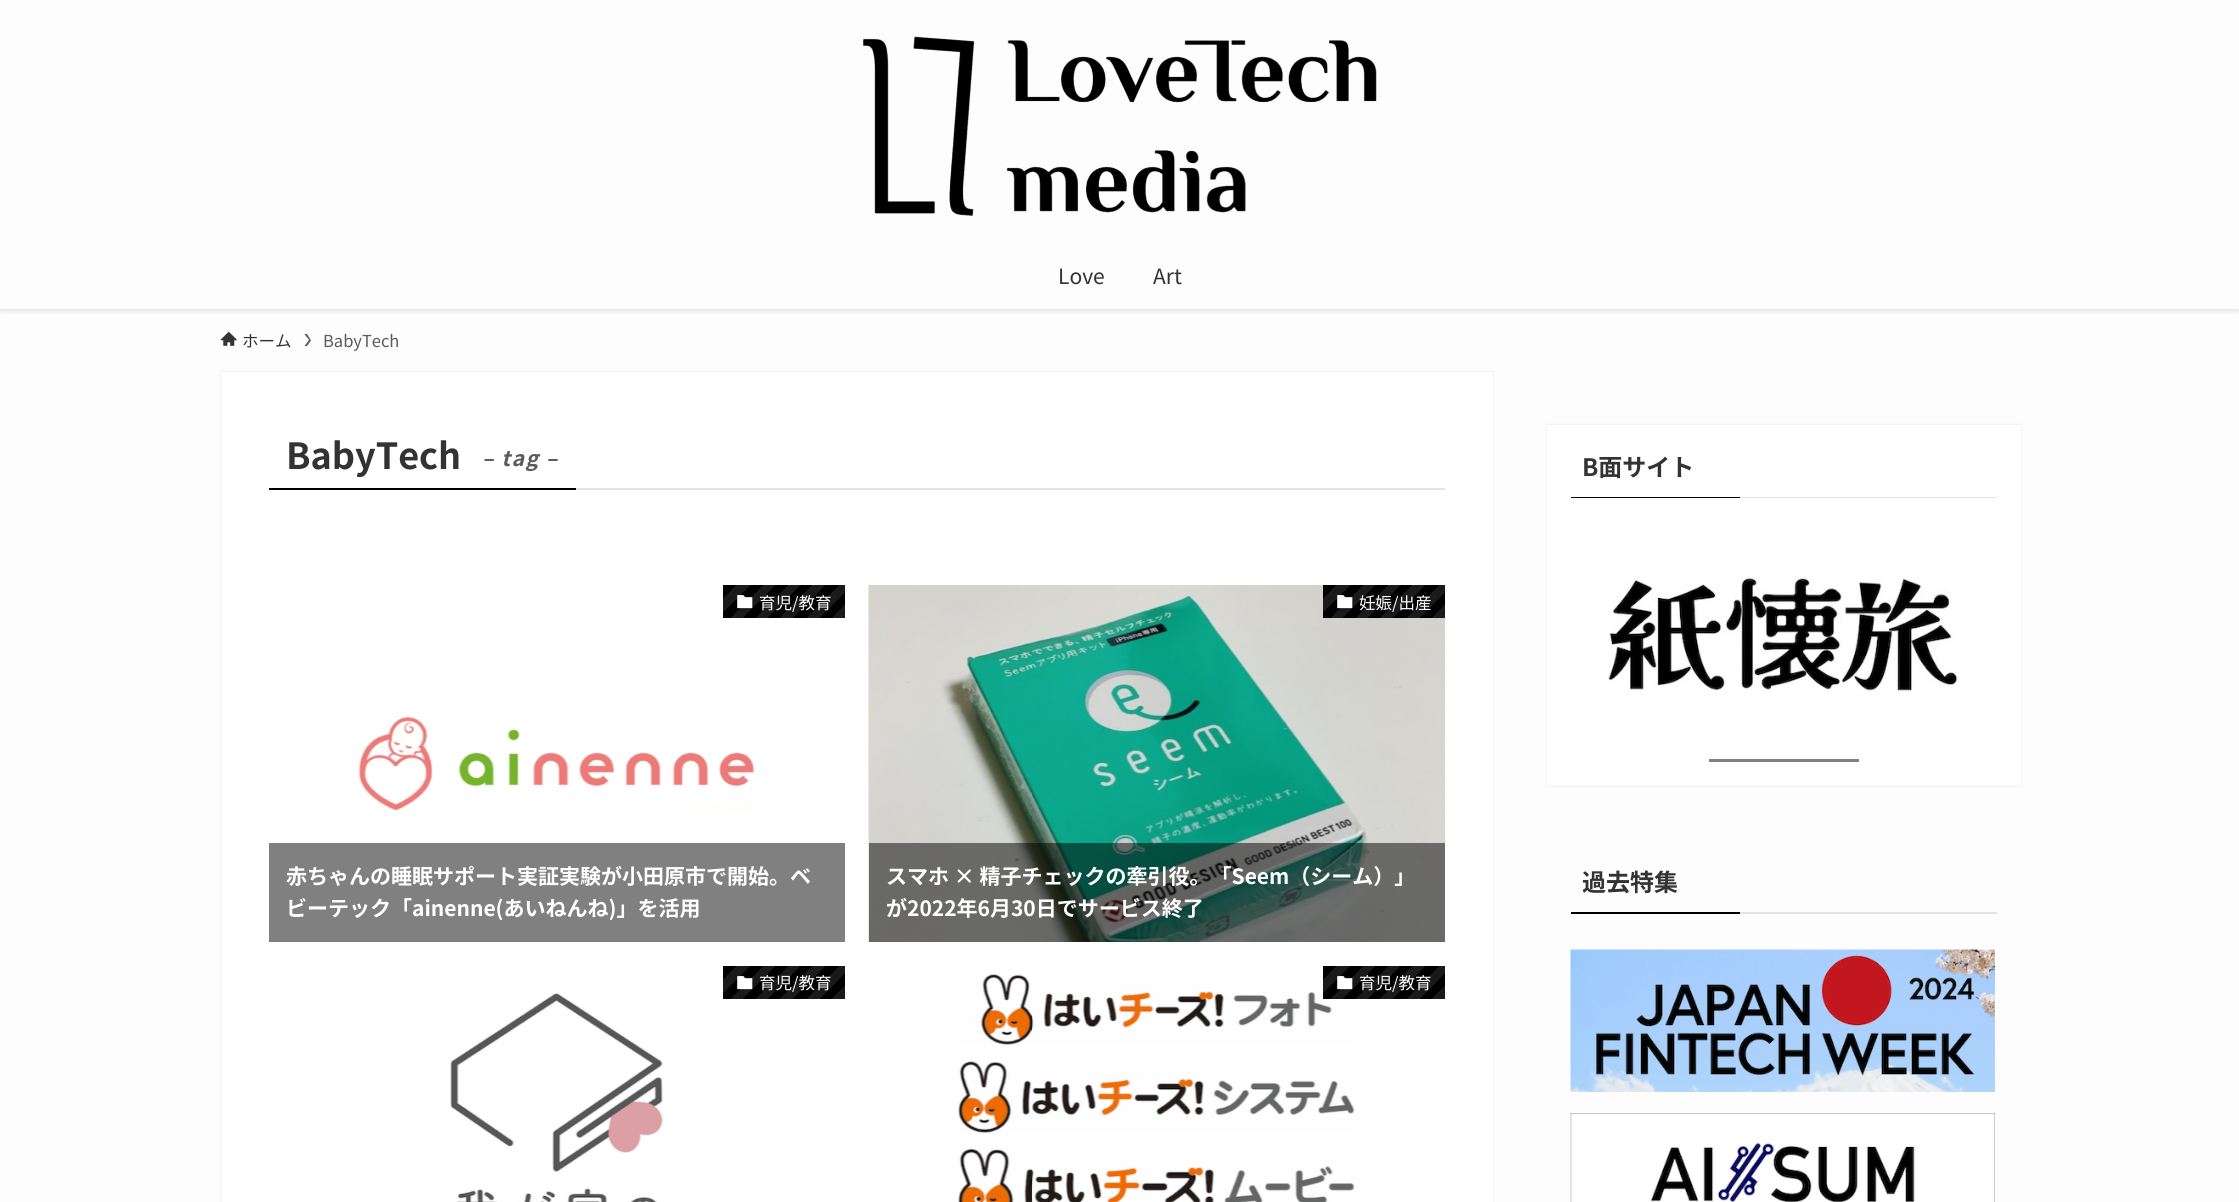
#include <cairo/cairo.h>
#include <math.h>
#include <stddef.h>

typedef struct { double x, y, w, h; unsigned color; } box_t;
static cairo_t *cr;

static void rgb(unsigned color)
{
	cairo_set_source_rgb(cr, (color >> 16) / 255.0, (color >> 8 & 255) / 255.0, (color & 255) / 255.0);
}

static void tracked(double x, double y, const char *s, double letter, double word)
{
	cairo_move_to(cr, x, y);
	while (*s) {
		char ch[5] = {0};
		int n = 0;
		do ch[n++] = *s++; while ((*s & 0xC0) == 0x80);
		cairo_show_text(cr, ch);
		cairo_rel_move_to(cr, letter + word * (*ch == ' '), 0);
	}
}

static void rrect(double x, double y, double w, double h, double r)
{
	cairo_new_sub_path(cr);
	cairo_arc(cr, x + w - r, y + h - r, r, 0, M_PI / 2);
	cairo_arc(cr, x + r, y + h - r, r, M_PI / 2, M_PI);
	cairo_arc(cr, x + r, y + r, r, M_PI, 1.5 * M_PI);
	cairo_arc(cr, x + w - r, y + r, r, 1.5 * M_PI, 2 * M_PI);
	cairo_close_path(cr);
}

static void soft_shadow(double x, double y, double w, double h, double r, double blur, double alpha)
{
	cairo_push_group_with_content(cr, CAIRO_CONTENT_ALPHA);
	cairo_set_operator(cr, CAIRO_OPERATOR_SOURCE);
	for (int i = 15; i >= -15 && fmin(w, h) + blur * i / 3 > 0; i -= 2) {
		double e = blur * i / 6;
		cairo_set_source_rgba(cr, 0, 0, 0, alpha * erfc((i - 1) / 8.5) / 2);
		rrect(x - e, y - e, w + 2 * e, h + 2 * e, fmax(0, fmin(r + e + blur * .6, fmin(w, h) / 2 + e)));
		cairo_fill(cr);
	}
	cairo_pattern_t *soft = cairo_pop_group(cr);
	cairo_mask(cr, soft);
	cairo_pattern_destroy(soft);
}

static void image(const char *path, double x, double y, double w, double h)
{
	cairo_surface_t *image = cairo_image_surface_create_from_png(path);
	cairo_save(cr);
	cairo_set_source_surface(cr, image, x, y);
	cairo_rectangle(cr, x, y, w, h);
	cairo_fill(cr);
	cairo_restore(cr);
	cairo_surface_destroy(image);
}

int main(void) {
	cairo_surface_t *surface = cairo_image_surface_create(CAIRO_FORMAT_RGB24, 2239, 1202);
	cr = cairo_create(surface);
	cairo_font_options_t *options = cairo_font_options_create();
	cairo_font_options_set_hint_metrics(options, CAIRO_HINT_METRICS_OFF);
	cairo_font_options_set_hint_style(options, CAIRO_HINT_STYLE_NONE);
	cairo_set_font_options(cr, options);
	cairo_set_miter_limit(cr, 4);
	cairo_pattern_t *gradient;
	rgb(0xfdfdfd);
	cairo_paint(cr);
	cairo_save(cr);
	cairo_rectangle(cr, 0, 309, 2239, 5);
	cairo_clip(cr);
	rgb(0x000000);
	soft_shadow(0, 2, 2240, 309, 0, 3, 0.12);
	cairo_restore(cr);
	image("img/1.png", 863, 36, 514, 180);
	image("img/2.png", 220, 331, 17, 15);
	rgb(0x5b5b5b);
	cairo_new_path(cr);
	cairo_move_to(cr, 307, 334);
	cairo_line_to(cr, 304.5, 334);
	cairo_line_to(cr, 309, 340);
	cairo_line_to(cr, 304.5, 346);
	cairo_line_to(cr, 307, 346);
	cairo_line_to(cr, 311, 340.5);
	cairo_close_path(cr);
	cairo_fill(cr);
	rgb(0x000000);
	soft_shadow(221, 372, 1272, 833, 0, 1, 0.12);
	{
		static const box_t items[] = {
			{221, 372, 1272, 830, 0xffffff},
			{576, 488, 869, 2, 0xe3e3e3},
			{269, 488, 307, 2, 0x000000},
		};
		for (size_t i = 0; i < sizeof items / sizeof *items; i++) {
			rgb(items[i].color);
			cairo_rectangle(cr, items[i].x, items[i].y, items[i].w, items[i].h);
			cairo_fill(cr);
		}
	}
	gradient = cairo_pattern_create_linear(822, 640, 733, 551);
	cairo_pattern_add_color_stop_rgba(gradient, 0, 0.102, 0.102, 0.102, 1);
	cairo_pattern_add_color_stop_rgba(gradient, 0.07, 0.102, 0.102, 0.102, 1);
	cairo_pattern_add_color_stop_rgba(gradient, 0.07, 0, 0, 0, 1);
	cairo_pattern_add_color_stop_rgba(gradient, 0.14, 0, 0, 0, 1);
	cairo_pattern_add_color_stop_rgba(gradient, 0.14, 0.102, 0.102, 0.102, 1);
	cairo_pattern_add_color_stop_rgba(gradient, 0.21, 0.102, 0.102, 0.102, 1);
	cairo_pattern_add_color_stop_rgba(gradient, 0.21, 0, 0, 0, 1);
	cairo_pattern_add_color_stop_rgba(gradient, 0.29, 0, 0, 0, 1);
	cairo_pattern_add_color_stop_rgba(gradient, 0.29, 0.102, 0.102, 0.102, 1);
	cairo_pattern_add_color_stop_rgba(gradient, 0.36, 0.102, 0.102, 0.102, 1);
	cairo_pattern_add_color_stop_rgba(gradient, 0.36, 0, 0, 0, 1);
	cairo_pattern_add_color_stop_rgba(gradient, 0.43, 0, 0, 0, 1);
	cairo_pattern_add_color_stop_rgba(gradient, 0.43, 0.102, 0.102, 0.102, 1);
	cairo_pattern_add_color_stop_rgba(gradient, 0.5, 0.102, 0.102, 0.102, 1);
	cairo_pattern_add_color_stop_rgba(gradient, 0.5, 0, 0, 0, 1);
	cairo_pattern_add_color_stop_rgba(gradient, 0.57, 0, 0, 0, 1);
	cairo_pattern_add_color_stop_rgba(gradient, 0.57, 0.102, 0.102, 0.102, 1);
	cairo_pattern_add_color_stop_rgba(gradient, 0.64, 0.102, 0.102, 0.102, 1);
	cairo_pattern_add_color_stop_rgba(gradient, 0.64, 0, 0, 0, 1);
	cairo_pattern_add_color_stop_rgba(gradient, 0.71, 0, 0, 0, 1);
	cairo_pattern_add_color_stop_rgba(gradient, 0.71, 0.102, 0.102, 0.102, 1);
	cairo_pattern_add_color_stop_rgba(gradient, 0.79, 0.102, 0.102, 0.102, 1);
	cairo_pattern_add_color_stop_rgba(gradient, 0.79, 0, 0, 0, 1);
	cairo_pattern_add_color_stop_rgba(gradient, 0.86, 0, 0, 0, 1);
	cairo_pattern_add_color_stop_rgba(gradient, 0.86, 0.102, 0.102, 0.102, 1);
	cairo_pattern_add_color_stop_rgba(gradient, 0.93, 0.102, 0.102, 0.102, 1);
	cairo_pattern_add_color_stop_rgba(gradient, 0.93, 0, 0, 0, 1);
	cairo_pattern_add_color_stop_rgba(gradient, 1, 0, 0, 0, 1);
	cairo_set_source(cr, gradient);
	cairo_pattern_destroy(gradient);
	cairo_rectangle(cr, 723, 585, 122, 33);
	cairo_fill(cr);
	image("img/3.png", 737, 595, 16, 14);
	image("img/4.png", 358, 716, 397, 95);
	rgb(0x808080);
	cairo_rectangle(cr, 269, 843, 576, 99);
	cairo_fill(cr);
	image("img/5.png", 868, 585, 577, 357);
	gradient = cairo_pattern_create_linear(1422, 640, 1333, 551);
	cairo_pattern_add_color_stop_rgba(gradient, 0, 0.102, 0.102, 0.102, 1);
	cairo_pattern_add_color_stop_rgba(gradient, 0.07, 0.102, 0.102, 0.102, 1);
	cairo_pattern_add_color_stop_rgba(gradient, 0.07, 0, 0, 0, 1);
	cairo_pattern_add_color_stop_rgba(gradient, 0.14, 0, 0, 0, 1);
	cairo_pattern_add_color_stop_rgba(gradient, 0.14, 0.102, 0.102, 0.102, 1);
	cairo_pattern_add_color_stop_rgba(gradient, 0.21, 0.102, 0.102, 0.102, 1);
	cairo_pattern_add_color_stop_rgba(gradient, 0.21, 0, 0, 0, 1);
	cairo_pattern_add_color_stop_rgba(gradient, 0.29, 0, 0, 0, 1);
	cairo_pattern_add_color_stop_rgba(gradient, 0.29, 0.102, 0.102, 0.102, 1);
	cairo_pattern_add_color_stop_rgba(gradient, 0.36, 0.102, 0.102, 0.102, 1);
	cairo_pattern_add_color_stop_rgba(gradient, 0.36, 0, 0, 0, 1);
	cairo_pattern_add_color_stop_rgba(gradient, 0.43, 0, 0, 0, 1);
	cairo_pattern_add_color_stop_rgba(gradient, 0.43, 0.102, 0.102, 0.102, 1);
	cairo_pattern_add_color_stop_rgba(gradient, 0.5, 0.102, 0.102, 0.102, 1);
	cairo_pattern_add_color_stop_rgba(gradient, 0.5, 0, 0, 0, 1);
	cairo_pattern_add_color_stop_rgba(gradient, 0.57, 0, 0, 0, 1);
	cairo_pattern_add_color_stop_rgba(gradient, 0.57, 0.102, 0.102, 0.102, 1);
	cairo_pattern_add_color_stop_rgba(gradient, 0.64, 0.102, 0.102, 0.102, 1);
	cairo_pattern_add_color_stop_rgba(gradient, 0.64, 0, 0, 0, 1);
	cairo_pattern_add_color_stop_rgba(gradient, 0.71, 0, 0, 0, 1);
	cairo_pattern_add_color_stop_rgba(gradient, 0.71, 0.102, 0.102, 0.102, 1);
	cairo_pattern_add_color_stop_rgba(gradient, 0.79, 0.102, 0.102, 0.102, 1);
	cairo_pattern_add_color_stop_rgba(gradient, 0.79, 0, 0, 0, 1);
	cairo_pattern_add_color_stop_rgba(gradient, 0.86, 0, 0, 0, 1);
	cairo_pattern_add_color_stop_rgba(gradient, 0.86, 0.102, 0.102, 0.102, 1);
	cairo_pattern_add_color_stop_rgba(gradient, 0.93, 0.102, 0.102, 0.102, 1);
	cairo_pattern_add_color_stop_rgba(gradient, 0.93, 0, 0, 0, 1);
	cairo_pattern_add_color_stop_rgba(gradient, 1, 0, 0, 0, 1);
	cairo_set_source(cr, gradient);
	cairo_pattern_destroy(gradient);
	cairo_rectangle(cr, 1323, 585, 122, 33);
	cairo_fill(cr);
	image("img/3.png", 1337, 595, 16, 14);
	cairo_set_source_rgba(cr, 0, 0, 0, 0.5);
	cairo_rectangle(cr, 869, 843, 576, 99);
	cairo_fill(cr);
	gradient = cairo_pattern_create_linear(822, 1021, 733, 932);
	cairo_pattern_add_color_stop_rgba(gradient, 0, 0.102, 0.102, 0.102, 1);
	cairo_pattern_add_color_stop_rgba(gradient, 0.07, 0.102, 0.102, 0.102, 1);
	cairo_pattern_add_color_stop_rgba(gradient, 0.07, 0, 0, 0, 1);
	cairo_pattern_add_color_stop_rgba(gradient, 0.14, 0, 0, 0, 1);
	cairo_pattern_add_color_stop_rgba(gradient, 0.14, 0.102, 0.102, 0.102, 1);
	cairo_pattern_add_color_stop_rgba(gradient, 0.21, 0.102, 0.102, 0.102, 1);
	cairo_pattern_add_color_stop_rgba(gradient, 0.21, 0, 0, 0, 1);
	cairo_pattern_add_color_stop_rgba(gradient, 0.29, 0, 0, 0, 1);
	cairo_pattern_add_color_stop_rgba(gradient, 0.29, 0.102, 0.102, 0.102, 1);
	cairo_pattern_add_color_stop_rgba(gradient, 0.36, 0.102, 0.102, 0.102, 1);
	cairo_pattern_add_color_stop_rgba(gradient, 0.36, 0, 0, 0, 1);
	cairo_pattern_add_color_stop_rgba(gradient, 0.43, 0, 0, 0, 1);
	cairo_pattern_add_color_stop_rgba(gradient, 0.43, 0.102, 0.102, 0.102, 1);
	cairo_pattern_add_color_stop_rgba(gradient, 0.5, 0.102, 0.102, 0.102, 1);
	cairo_pattern_add_color_stop_rgba(gradient, 0.5, 0, 0, 0, 1);
	cairo_pattern_add_color_stop_rgba(gradient, 0.57, 0, 0, 0, 1);
	cairo_pattern_add_color_stop_rgba(gradient, 0.57, 0.102, 0.102, 0.102, 1);
	cairo_pattern_add_color_stop_rgba(gradient, 0.64, 0.102, 0.102, 0.102, 1);
	cairo_pattern_add_color_stop_rgba(gradient, 0.64, 0, 0, 0, 1);
	cairo_pattern_add_color_stop_rgba(gradient, 0.71, 0, 0, 0, 1);
	cairo_pattern_add_color_stop_rgba(gradient, 0.71, 0.102, 0.102, 0.102, 1);
	cairo_pattern_add_color_stop_rgba(gradient, 0.79, 0.102, 0.102, 0.102, 1);
	cairo_pattern_add_color_stop_rgba(gradient, 0.79, 0, 0, 0, 1);
	cairo_pattern_add_color_stop_rgba(gradient, 0.86, 0, 0, 0, 1);
	cairo_pattern_add_color_stop_rgba(gradient, 0.86, 0.102, 0.102, 0.102, 1);
	cairo_pattern_add_color_stop_rgba(gradient, 0.93, 0.102, 0.102, 0.102, 1);
	cairo_pattern_add_color_stop_rgba(gradient, 0.93, 0, 0, 0, 1);
	cairo_pattern_add_color_stop_rgba(gradient, 1, 0, 0, 0, 1);
	cairo_set_source(cr, gradient);
	cairo_pattern_destroy(gradient);
	cairo_rectangle(cr, 723, 966, 122, 33);
	cairo_fill(cr);
	image("img/3.png", 737, 976, 16, 14);
	image("img/6.png", 450, 993, 213, 209);
	image("img/7.png", 958, 974, 397, 228);
	gradient = cairo_pattern_create_linear(1422, 1021, 1333, 932);
	cairo_pattern_add_color_stop_rgba(gradient, 0, 0.102, 0.102, 0.102, 1);
	cairo_pattern_add_color_stop_rgba(gradient, 0.07, 0.102, 0.102, 0.102, 1);
	cairo_pattern_add_color_stop_rgba(gradient, 0.07, 0, 0, 0, 1);
	cairo_pattern_add_color_stop_rgba(gradient, 0.14, 0, 0, 0, 1);
	cairo_pattern_add_color_stop_rgba(gradient, 0.14, 0.102, 0.102, 0.102, 1);
	cairo_pattern_add_color_stop_rgba(gradient, 0.21, 0.102, 0.102, 0.102, 1);
	cairo_pattern_add_color_stop_rgba(gradient, 0.21, 0, 0, 0, 1);
	cairo_pattern_add_color_stop_rgba(gradient, 0.29, 0, 0, 0, 1);
	cairo_pattern_add_color_stop_rgba(gradient, 0.29, 0.102, 0.102, 0.102, 1);
	cairo_pattern_add_color_stop_rgba(gradient, 0.36, 0.102, 0.102, 0.102, 1);
	cairo_pattern_add_color_stop_rgba(gradient, 0.36, 0, 0, 0, 1);
	cairo_pattern_add_color_stop_rgba(gradient, 0.43, 0, 0, 0, 1);
	cairo_pattern_add_color_stop_rgba(gradient, 0.43, 0.102, 0.102, 0.102, 1);
	cairo_pattern_add_color_stop_rgba(gradient, 0.5, 0.102, 0.102, 0.102, 1);
	cairo_pattern_add_color_stop_rgba(gradient, 0.5, 0, 0, 0, 1);
	cairo_pattern_add_color_stop_rgba(gradient, 0.57, 0, 0, 0, 1);
	cairo_pattern_add_color_stop_rgba(gradient, 0.57, 0.102, 0.102, 0.102, 1);
	cairo_pattern_add_color_stop_rgba(gradient, 0.64, 0.102, 0.102, 0.102, 1);
	cairo_pattern_add_color_stop_rgba(gradient, 0.64, 0, 0, 0, 1);
	cairo_pattern_add_color_stop_rgba(gradient, 0.71, 0, 0, 0, 1);
	cairo_pattern_add_color_stop_rgba(gradient, 0.71, 0.102, 0.102, 0.102, 1);
	cairo_pattern_add_color_stop_rgba(gradient, 0.79, 0.102, 0.102, 0.102, 1);
	cairo_pattern_add_color_stop_rgba(gradient, 0.79, 0, 0, 0, 1);
	cairo_pattern_add_color_stop_rgba(gradient, 0.86, 0, 0, 0, 1);
	cairo_pattern_add_color_stop_rgba(gradient, 0.86, 0.102, 0.102, 0.102, 1);
	cairo_pattern_add_color_stop_rgba(gradient, 0.93, 0.102, 0.102, 0.102, 1);
	cairo_pattern_add_color_stop_rgba(gradient, 0.93, 0, 0, 0, 1);
	cairo_pattern_add_color_stop_rgba(gradient, 1, 0, 0, 0, 1);
	cairo_set_source(cr, gradient);
	cairo_pattern_destroy(gradient);
	cairo_rectangle(cr, 1323, 966, 122, 33);
	cairo_fill(cr);
	image("img/3.png", 1337, 976, 16, 14);
	rgb(0x000000);
	soft_shadow(1547, 425, 474, 361, 0, 1, 0.12);
	{
		static const box_t items[] = {
			{1547, 425, 474, 361, 0xffffff},
			{1571, 497, 169, 1, 0x000000},
			{1740, 497, 257, 1, 0xe3e3e3},
		};
		for (size_t i = 0; i < sizeof items / sizeof *items; i++) {
			rgb(items[i].color);
			cairo_rectangle(cr, items[i].x, items[i].y, items[i].w, items[i].h);
			cairo_fill(cr);
		}
	}
	image("img/8.png", 1606, 575, 351, 116);
	{
		static const box_t items[] = {
			{1709, 759, 150, 3, 0x808080},
			{1571, 912, 169, 2, 0x000000},
			{1740, 912, 257, 2, 0xe3e3e3},
		};
		for (size_t i = 0; i < sizeof items / sizeof *items; i++) {
			rgb(items[i].color);
			cairo_rectangle(cr, items[i].x, items[i].y, items[i].w, items[i].h);
			cairo_fill(cr);
		}
	}
	image("img/9.png", 1570, 949, 425, 143);
	image("img/10.png", 1570, 1113, 425, 89);
	cairo_select_font_face(cr, "Noto Sans JP", CAIRO_FONT_SLANT_NORMAL, CAIRO_FONT_WEIGHT_NORMAL);
	cairo_set_font_size(cr, 21);
	rgb(0x333333);
	cairo_move_to(cr, 1058, 284);
	cairo_show_text(cr, "Love");
	cairo_move_to(cr, 1153, 284);
	cairo_show_text(cr, "Art");
	cairo_set_font_size(cr, 16.5);
	cairo_move_to(cr, 242, 347);
	cairo_show_text(cr, "ホーム");
	rgb(0x5b5b5b);
	cairo_move_to(cr, 323, 347);
	cairo_show_text(cr, "BabyTech");
	cairo_select_font_face(cr, "Noto Sans JP", CAIRO_FONT_SLANT_NORMAL, CAIRO_FONT_WEIGHT_BOLD);
	cairo_set_font_size(cr, 36);
	rgb(0x333333);
	cairo_move_to(cr, 286, 469);
	cairo_show_text(cr, "BabyTech");
	cairo_select_font_face(cr, "Noto Sans JP", CAIRO_FONT_SLANT_ITALIC, CAIRO_FONT_WEIGHT_BOLD);
	cairo_set_font_size(cr, 21);
	rgb(0x5b5b5b);
	tracked(482, 466, "– tag –", 1.5, 0);
	cairo_select_font_face(cr, "Noto Sans JP", CAIRO_FONT_SLANT_NORMAL, CAIRO_FONT_WEIGHT_NORMAL);
	cairo_set_font_size(cr, 16.5);
	rgb(0xffffff);
	cairo_move_to(cr, 759, 609);
	cairo_show_text(cr, "育児/教育");
	cairo_select_font_face(cr, "Noto Sans JP", CAIRO_FONT_SLANT_NORMAL, CAIRO_FONT_WEIGHT_BOLD);
	cairo_set_font_size(cr, 21);
	cairo_move_to(cr, 286, 884);
	cairo_show_text(cr, "赤ちゃんの睡眠サポート実証実験が小田原市で開始。ベ");
	cairo_move_to(cr, 286, 916);
	cairo_show_text(cr, "ビーテック「ainenne(あいねんね)」を活用");
	cairo_select_font_face(cr, "Noto Sans JP", CAIRO_FONT_SLANT_NORMAL, CAIRO_FONT_WEIGHT_NORMAL);
	cairo_set_font_size(cr, 16.5);
	cairo_move_to(cr, 1359, 609);
	cairo_show_text(cr, "妊娠/出産");
	cairo_select_font_face(cr, "Noto Sans JP", CAIRO_FONT_SLANT_NORMAL, CAIRO_FONT_WEIGHT_BOLD);
	cairo_set_font_size(cr, 21);
	cairo_move_to(cr, 886, 884);
	cairo_show_text(cr, "スマホ × 精子チェックの牽引役。「Seem（シーム）」");
	cairo_move_to(cr, 886, 916);
	cairo_show_text(cr, "が2022年6月30日でサービス終了");
	cairo_select_font_face(cr, "Noto Sans JP", CAIRO_FONT_SLANT_NORMAL, CAIRO_FONT_WEIGHT_NORMAL);
	cairo_set_font_size(cr, 16.5);
	cairo_move_to(cr, 759, 989);
	cairo_show_text(cr, "育児/教育");
	cairo_move_to(cr, 1359, 989);
	cairo_show_text(cr, "育児/教育");
	cairo_select_font_face(cr, "Noto Sans JP", CAIRO_FONT_SLANT_NORMAL, CAIRO_FONT_WEIGHT_BOLD);
	cairo_set_font_size(cr, 24);
	rgb(0x333333);
	cairo_move_to(cr, 1582, 476);
	cairo_show_text(cr, "B面サイト");
	cairo_move_to(cr, 1582, 891);
	cairo_show_text(cr, "過去特集");
	cairo_surface_write_to_png(surface, "page.png");
	cairo_font_options_destroy(options);
	cairo_destroy(cr);
	cairo_surface_destroy(surface);
	return 0;
}
